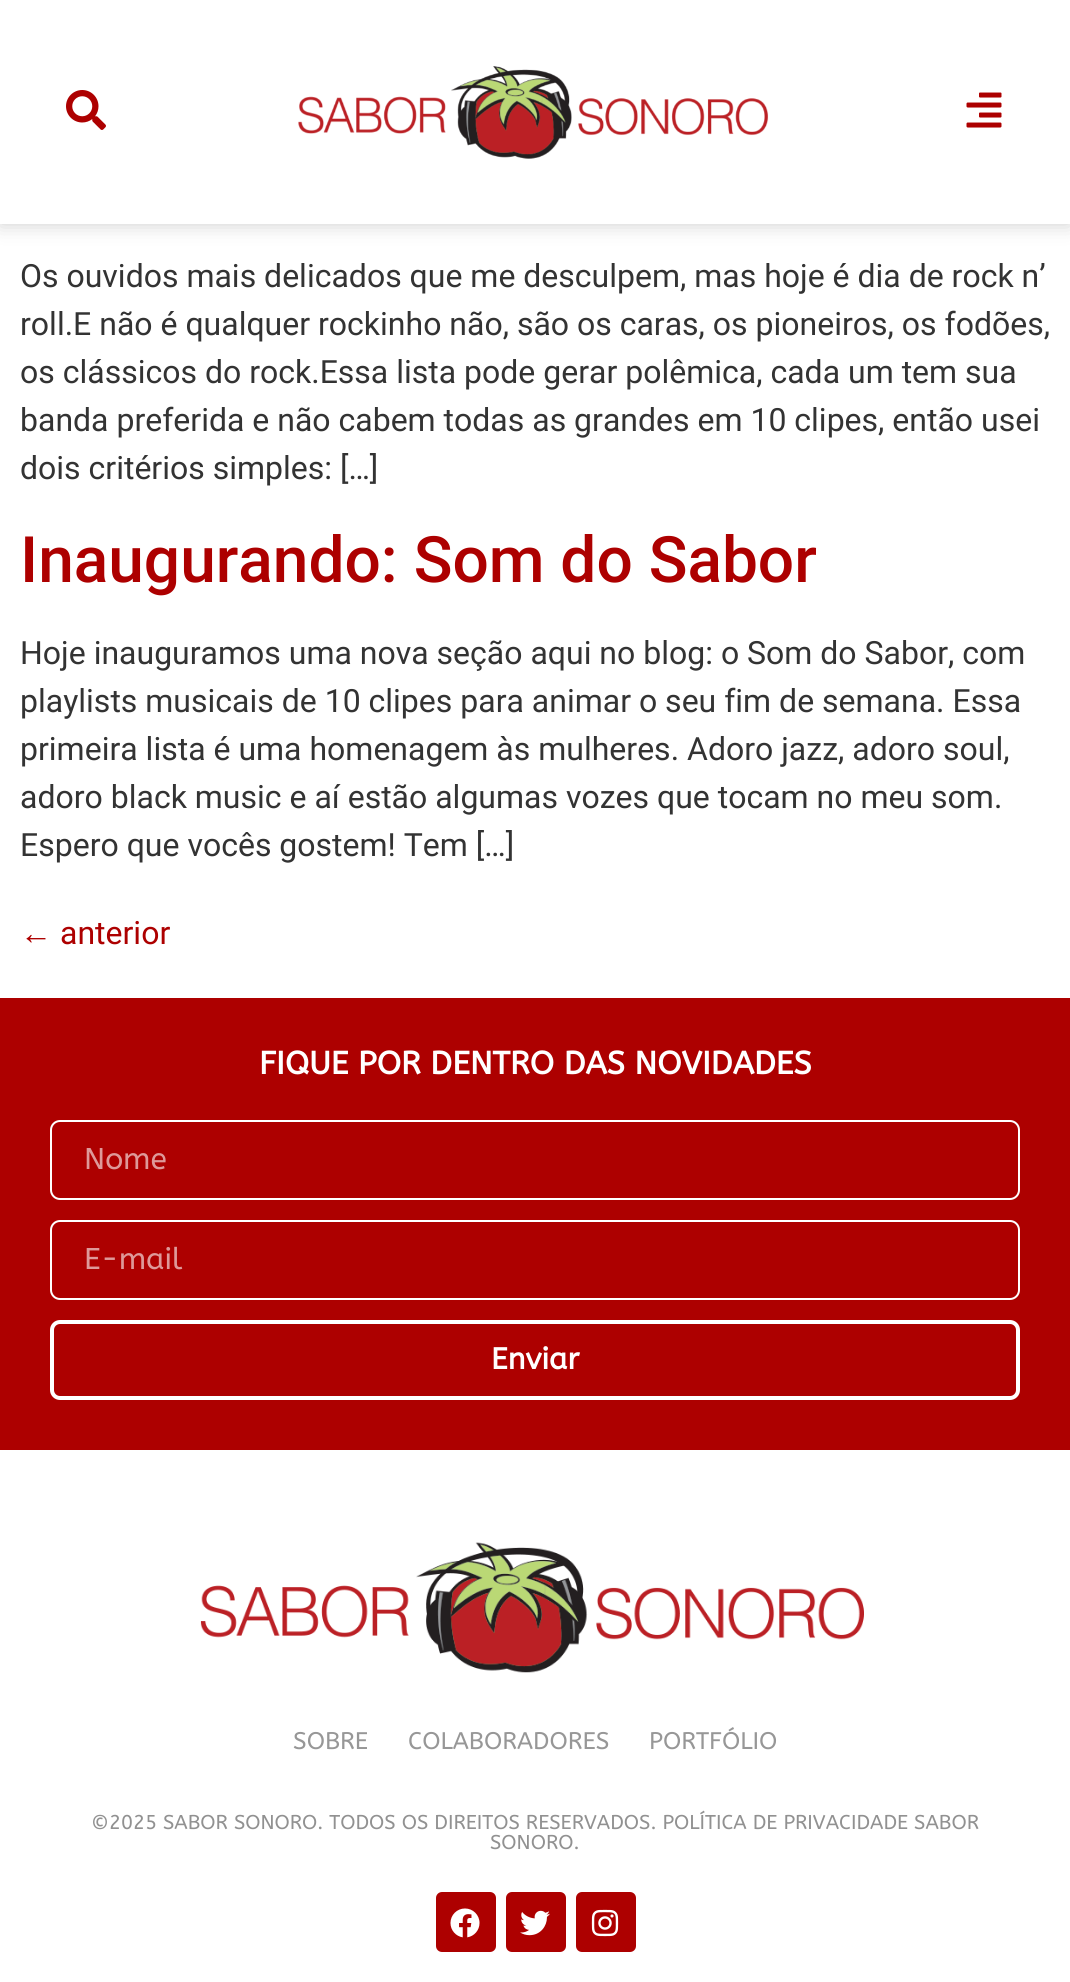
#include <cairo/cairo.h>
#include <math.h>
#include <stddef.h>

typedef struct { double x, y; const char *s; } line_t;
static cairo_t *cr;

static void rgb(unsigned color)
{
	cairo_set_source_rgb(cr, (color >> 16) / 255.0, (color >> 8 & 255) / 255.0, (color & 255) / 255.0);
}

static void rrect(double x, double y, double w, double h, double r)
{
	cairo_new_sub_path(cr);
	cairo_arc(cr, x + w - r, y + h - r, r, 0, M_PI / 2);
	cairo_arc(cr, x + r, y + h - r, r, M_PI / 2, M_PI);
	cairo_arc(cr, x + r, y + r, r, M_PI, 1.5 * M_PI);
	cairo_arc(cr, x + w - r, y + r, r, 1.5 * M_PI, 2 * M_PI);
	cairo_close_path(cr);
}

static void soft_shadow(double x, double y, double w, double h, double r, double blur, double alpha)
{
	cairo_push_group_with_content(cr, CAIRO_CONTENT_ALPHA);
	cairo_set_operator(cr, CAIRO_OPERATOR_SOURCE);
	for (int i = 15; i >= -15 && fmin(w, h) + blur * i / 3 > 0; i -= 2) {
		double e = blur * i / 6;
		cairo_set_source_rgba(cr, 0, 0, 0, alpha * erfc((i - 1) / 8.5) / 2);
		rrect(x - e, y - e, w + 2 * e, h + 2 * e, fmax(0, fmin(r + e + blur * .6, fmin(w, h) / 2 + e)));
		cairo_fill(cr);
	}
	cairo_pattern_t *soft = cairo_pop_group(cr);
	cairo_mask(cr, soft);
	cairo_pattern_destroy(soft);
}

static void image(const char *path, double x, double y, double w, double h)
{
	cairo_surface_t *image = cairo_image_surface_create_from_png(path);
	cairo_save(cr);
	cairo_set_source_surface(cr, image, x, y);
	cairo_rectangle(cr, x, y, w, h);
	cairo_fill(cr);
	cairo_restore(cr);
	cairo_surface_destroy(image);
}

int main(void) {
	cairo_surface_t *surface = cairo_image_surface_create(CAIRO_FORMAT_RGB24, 1070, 1982);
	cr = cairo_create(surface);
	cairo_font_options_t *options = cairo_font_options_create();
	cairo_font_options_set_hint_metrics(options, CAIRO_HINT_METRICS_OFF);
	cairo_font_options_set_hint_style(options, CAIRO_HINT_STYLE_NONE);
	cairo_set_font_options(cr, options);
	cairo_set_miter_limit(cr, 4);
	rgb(0xffffff);
	cairo_paint(cr);
	rgb(0x000000);
	soft_shadow(0, 0, 1070, 224, 0, 10, 0.2);
	rgb(0xffffff);
	cairo_rectangle(cr, 0, 0, 1070, 224);
	cairo_fill(cr);
	image("img/1.png", 66, 90, 40, 40);
	image("img/2.png", 298, 66, 471, 93);
	image("img/3.png", 966, 92, 36, 36);
	rgb(0xad0000);
	cairo_rectangle(cr, 0, 998, 1070, 452);
	cairo_fill(cr);
	rrect(51, 1121, 968, 78, 9);
	rgb(0xffffff);
	cairo_stroke(cr);
	rrect(51, 1221, 968, 78, 9);
	cairo_stroke(cr);
	rrect(52, 1322, 966, 76, 8);
	cairo_set_line_width(cr, 4);
	cairo_stroke(cr);
	image("img/4.png", 200, 1542, 664, 131);
	rgb(0xad0000);
	rrect(436, 1892, 60, 60, 6);
	cairo_fill(cr);
	image("img/5.png", 450, 1908, 30, 30);
	rrect(506, 1892, 60, 60, 6);
	cairo_fill(cr);
	image("img/6.png", 520, 1910, 30, 26);
	rrect(576, 1892, 60, 60, 6);
	cairo_fill(cr);
	image("img/7.png", 591, 1909, 28, 28);
	cairo_select_font_face(cr, "Roboto", CAIRO_FONT_SLANT_NORMAL, CAIRO_FONT_WEIGHT_NORMAL);
	cairo_set_font_size(cr, 32);
	rgb(0x333333);
	{
		static const line_t items[] = {
			{20, 287, "Os ouvidos mais delicados que me desculpem, mas hoje é dia de rock n’"},
			{20, 335, "roll.E não é qualquer rockinho não, são os caras, os pioneiros, os fodões,"},
			{20, 383, "os clássicos do rock.Essa lista pode gerar polêmica, cada um tem sua"},
			{20, 431, "banda preferida e não cabem todas as grandes em 10 clipes, então usei"},
			{20, 479, "dois critérios simples: […]"},
		};
		for (size_t i = 0; i < sizeof items / sizeof *items; i++) {
			cairo_move_to(cr, items[i].x, items[i].y);
			cairo_show_text(cr, items[i].s);
		}
	}
	cairo_select_font_face(cr, "Roboto Medium", CAIRO_FONT_SLANT_NORMAL, CAIRO_FONT_WEIGHT_NORMAL);
	cairo_set_font_size(cr, 64);
	rgb(0xad0000);
	cairo_move_to(cr, 20, 582);
	cairo_show_text(cr, "Inaugurando: Som do Sabor");
	cairo_select_font_face(cr, "Roboto", CAIRO_FONT_SLANT_NORMAL, CAIRO_FONT_WEIGHT_NORMAL);
	cairo_set_font_size(cr, 32);
	rgb(0x333333);
	{
		static const line_t items[] = {
			{20, 664, "Hoje inauguramos uma nova seção aqui no blog: o Som do Sabor, com"},
			{20, 712, "playlists musicais de 10 clipes para animar o seu fim de semana. Essa"},
			{20, 760, "primeira lista é uma homenagem às mulheres. Adoro jazz, adoro soul,"},
			{20, 808, "adoro black music e aí estão algumas vozes que tocam no meu som."},
			{20, 856, "Espero que vocês gostem! Tem […]"},
		};
		for (size_t i = 0; i < sizeof items / sizeof *items; i++) {
			cairo_move_to(cr, items[i].x, items[i].y);
			cairo_show_text(cr, items[i].s);
		}
	}
	cairo_select_font_face(cr, "Liberation Sans", CAIRO_FONT_SLANT_NORMAL, CAIRO_FONT_WEIGHT_NORMAL);
	rgb(0xad0000);
	cairo_move_to(cr, 20, 944);
	cairo_show_text(cr, "←");
	cairo_select_font_face(cr, "Roboto", CAIRO_FONT_SLANT_NORMAL, CAIRO_FONT_WEIGHT_NORMAL);
	cairo_move_to(cr, 60, 944);
	cairo_show_text(cr, "anterior");
	cairo_select_font_face(cr, "ABeeZee", CAIRO_FONT_SLANT_NORMAL, CAIRO_FONT_WEIGHT_BOLD);
	rgb(0xffffff);
	cairo_move_to(cr, 259, 1074);
	cairo_show_text(cr, "FIQUE POR DENTRO DAS NOVIDADES");
	cairo_select_font_face(cr, "ABeeZee", CAIRO_FONT_SLANT_NORMAL, CAIRO_FONT_WEIGHT_NORMAL);
	cairo_set_font_size(cr, 30);
	rgb(0xde9999);
	cairo_move_to(cr, 84, 1169);
	cairo_show_text(cr, "Nome");
	cairo_move_to(cr, 84, 1269);
	cairo_show_text(cr, "E-mail");
	cairo_select_font_face(cr, "ABeeZee", CAIRO_FONT_SLANT_NORMAL, CAIRO_FONT_WEIGHT_BOLD);
	rgb(0xffffff);
	cairo_move_to(cr, 491, 1369);
	cairo_show_text(cr, "Enviar");
	cairo_select_font_face(cr, "ABeeZee", CAIRO_FONT_SLANT_NORMAL, CAIRO_FONT_WEIGHT_NORMAL);
	cairo_set_font_size(cr, 24);
	rgb(0x979797);
	{
		static const line_t items[] = {
			{293, 1749, "SOBRE"},
			{408, 1749, "COLABORADORES"},
			{649, 1749, "PORTFÓLIO"},
		};
		for (size_t i = 0; i < sizeof items / sizeof *items; i++) {
			cairo_move_to(cr, items[i].x, items[i].y);
			cairo_show_text(cr, items[i].s);
		}
	}
	cairo_set_font_size(cr, 20);
	rgb(0x919191);
	cairo_move_to(cr, 91, 1829);
	cairo_show_text(cr, "©2025 SABOR SONORO. TODOS OS DIREITOS RESERVADOS. POLÍTICA DE PRIVACIDADE SABOR");
	cairo_move_to(cr, 490, 1849);
	cairo_show_text(cr, "SONORO.");
	cairo_surface_write_to_png(surface, "page.png");
	cairo_font_options_destroy(options);
	cairo_destroy(cr);
	cairo_surface_destroy(surface);
	return 0;
}
